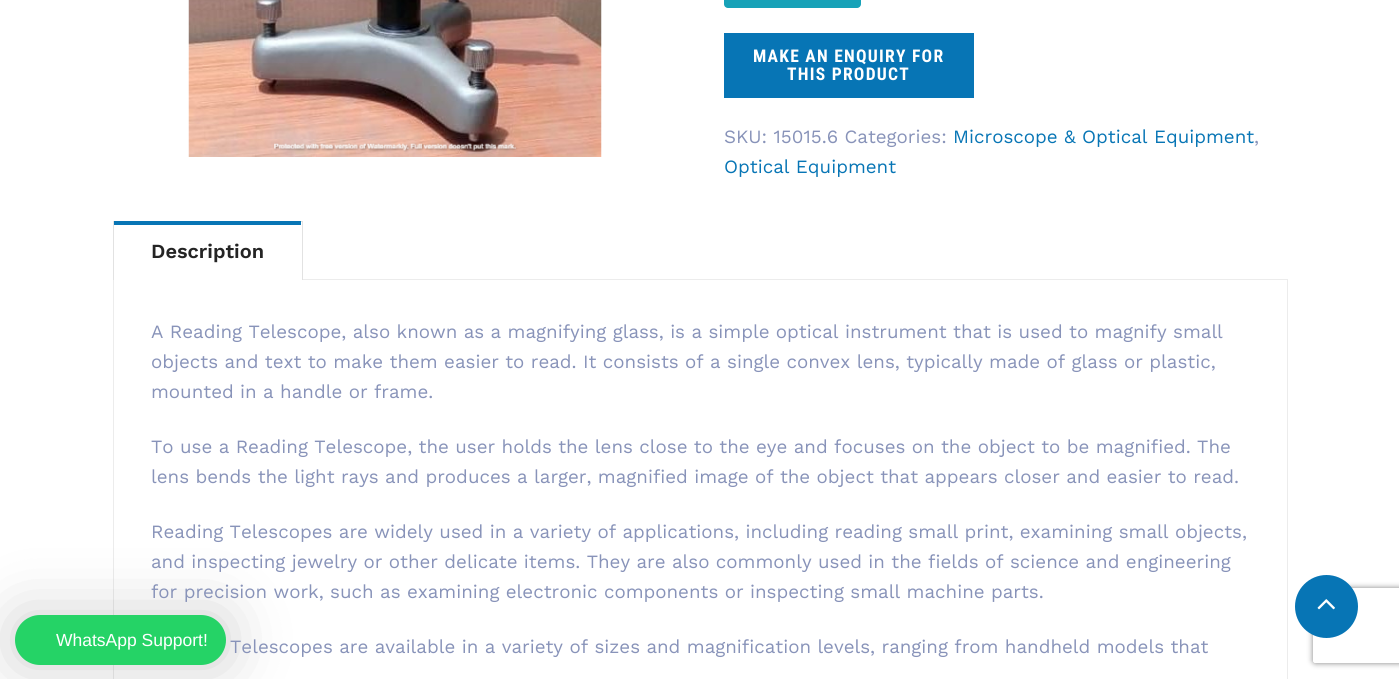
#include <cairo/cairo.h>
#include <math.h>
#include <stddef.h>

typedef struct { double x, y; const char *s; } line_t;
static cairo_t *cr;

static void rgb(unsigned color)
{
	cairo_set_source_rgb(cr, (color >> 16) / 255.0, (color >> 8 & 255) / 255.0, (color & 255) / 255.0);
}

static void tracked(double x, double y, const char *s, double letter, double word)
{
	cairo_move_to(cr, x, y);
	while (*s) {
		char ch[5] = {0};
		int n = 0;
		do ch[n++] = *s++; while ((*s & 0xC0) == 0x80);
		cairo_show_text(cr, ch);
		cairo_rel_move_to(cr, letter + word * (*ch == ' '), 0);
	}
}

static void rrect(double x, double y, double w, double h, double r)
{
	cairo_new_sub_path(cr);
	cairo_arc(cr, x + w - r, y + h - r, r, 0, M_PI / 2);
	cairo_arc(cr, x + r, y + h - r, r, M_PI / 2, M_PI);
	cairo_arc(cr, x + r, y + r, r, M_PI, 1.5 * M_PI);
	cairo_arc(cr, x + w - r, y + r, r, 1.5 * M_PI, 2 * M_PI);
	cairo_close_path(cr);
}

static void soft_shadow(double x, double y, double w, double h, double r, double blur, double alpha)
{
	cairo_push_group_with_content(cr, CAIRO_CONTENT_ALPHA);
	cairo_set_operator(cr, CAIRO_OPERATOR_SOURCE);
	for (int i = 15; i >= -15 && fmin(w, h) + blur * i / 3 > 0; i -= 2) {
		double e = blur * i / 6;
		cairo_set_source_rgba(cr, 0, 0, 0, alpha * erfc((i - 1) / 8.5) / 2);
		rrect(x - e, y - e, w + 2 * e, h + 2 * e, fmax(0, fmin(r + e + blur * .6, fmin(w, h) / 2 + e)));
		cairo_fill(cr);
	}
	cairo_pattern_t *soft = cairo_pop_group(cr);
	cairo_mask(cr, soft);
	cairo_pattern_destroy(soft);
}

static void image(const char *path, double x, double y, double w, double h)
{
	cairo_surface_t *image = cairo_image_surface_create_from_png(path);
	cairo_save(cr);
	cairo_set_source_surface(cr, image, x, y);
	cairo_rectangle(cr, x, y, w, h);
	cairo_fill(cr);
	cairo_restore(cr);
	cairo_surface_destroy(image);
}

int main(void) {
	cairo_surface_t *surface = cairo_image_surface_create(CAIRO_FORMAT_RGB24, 1399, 679);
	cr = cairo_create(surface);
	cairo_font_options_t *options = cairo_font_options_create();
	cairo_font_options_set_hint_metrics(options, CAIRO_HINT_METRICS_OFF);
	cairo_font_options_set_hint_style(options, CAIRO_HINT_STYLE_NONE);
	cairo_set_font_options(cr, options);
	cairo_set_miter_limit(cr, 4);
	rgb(0xffffff);
	cairo_paint(cr);
	image("img/1.png", 188, 0, 414, 157);
	rgb(0x17a2b8);
	rrect(724, -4, 137, 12, 4);
	cairo_fill(cr);
	rgb(0x0775b5);
	cairo_rectangle(cr, 724, 33, 250, 65);
	cairo_fill(cr);
	cairo_rectangle(cr, 113.5, 279.5, 1174, 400);
	rgb(0xececec);
	cairo_set_line_width(cr, 1);
	cairo_stroke(cr);
	rgb(0xffffff);
	cairo_rectangle(cr, 113, 279, 190, 1);
	cairo_fill(cr);
	cairo_save(cr);
	cairo_rectangle(cr, 113, 220, 1175, 60);
	cairo_clip(cr);
	cairo_rectangle(cr, 113.5, 221.5, 189, 59);
	rgb(0xe2e2e2);
	cairo_stroke(cr);
	cairo_restore(cr);
	rgb(0x0775b5);
	cairo_rectangle(cr, 114, 221, 187, 4);
	cairo_fill(cr);
	cairo_save(cr);
	cairo_set_fill_rule(cr, CAIRO_FILL_RULE_EVEN_ODD);
	cairo_new_path(cr);
	cairo_move_to(cr, 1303, 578);
	cairo_line_to(cr, 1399, 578);
	cairo_line_to(cr, 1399, 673);
	cairo_line_to(cr, 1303, 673);
	cairo_close_path(cr);
	cairo_move_to(cr, 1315.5, 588);
	cairo_line_to(cr, 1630.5, 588);
	cairo_curve_to(cr, 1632, 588, 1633, 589, 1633, 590.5);
	cairo_line_to(cr, 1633, 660.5);
	cairo_curve_to(cr, 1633, 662, 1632, 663, 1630.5, 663);
	cairo_line_to(cr, 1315.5, 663);
	cairo_curve_to(cr, 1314, 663, 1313, 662, 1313, 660.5);
	cairo_line_to(cr, 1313, 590.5);
	cairo_curve_to(cr, 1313, 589, 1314, 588, 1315.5, 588);
	cairo_close_path(cr);
	cairo_clip(cr);
	rgb(0x808080);
	soft_shadow(1313, 588, 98, 75, 2.5, 3, 1);
	cairo_restore(cr);
	cairo_arc(cr, 1326.5, 606.5, 31.5, 0, 2 * M_PI);
	cairo_fill(cr);
	image("img/2.png", 1317, 599, 18, 11);
	rgb(0x000000);
	soft_shadow(15, 615, 211, 50, 25, 31, 0.2);
	rgb(0x25d366);
	rrect(15, 615, 211, 50, 25);
	cairo_fill(cr);
	cairo_select_font_face(cr, "Roboto Condensed", CAIRO_FONT_SLANT_NORMAL, CAIRO_FONT_WEIGHT_BOLD);
	cairo_set_font_size(cr, 17.5);
	rgb(0xffffff);
	tracked(753, 62, "MAKE AN ENQUIRY FOR", 1.25, 0);
	tracked(787, 80, "THIS PRODUCT", 1.25, 0);
	cairo_select_font_face(cr, "Work Sans", CAIRO_FONT_SLANT_NORMAL, CAIRO_FONT_WEIGHT_NORMAL);
	cairo_set_font_size(cr, 18.75);
	rgb(0x8893b9);
	cairo_move_to(cr, 724, 143);
	cairo_show_text(cr, "SKU: 15015.6 Categories:");
	rgb(0x0775b5);
	cairo_move_to(cr, 953, 143);
	cairo_show_text(cr, "Microscope & Optical Equipment");
	rgb(0x8893b9);
	cairo_move_to(cr, 1254, 143);
	cairo_show_text(cr, ",");
	rgb(0x0775b5);
	cairo_move_to(cr, 724, 173);
	cairo_show_text(cr, "Optical Equipment");
	cairo_select_font_face(cr, "Work Sans SemiBold", CAIRO_FONT_SLANT_NORMAL, CAIRO_FONT_WEIGHT_NORMAL);
	cairo_set_font_size(cr, 20);
	rgb(0x242424);
	cairo_move_to(cr, 151, 258);
	cairo_show_text(cr, "Description");
	cairo_select_font_face(cr, "Work Sans", CAIRO_FONT_SLANT_NORMAL, CAIRO_FONT_WEIGHT_NORMAL);
	cairo_set_font_size(cr, 18.75);
	rgb(0x8893b9);
	{
		static const line_t items[] = {
			{151, 338, "A Reading Telescope, also known as a magnifying glass, is a simple optical instrument that is used to magnify small"},
			{151, 368, "objects and text to make them easier to read. It consists of a single convex lens, typically made of glass or plastic,"},
			{151, 398, "mounted in a handle or frame."},
			{151, 453, "To use a Reading Telescope, the user holds the lens close to the eye and focuses on the object to be magnified. The"},
			{151, 483, "lens bends the light rays and produces a larger, magnified image of the object that appears closer and easier to read."},
			{151, 538, "Reading Telescopes are widely used in a variety of applications, including reading small print, examining small objects,"},
			{151, 568, "and inspecting jewelry or other delicate items. They are also commonly used in the fields of science and engineering"},
			{151, 598, "for precision work, such as examining electronic components or inspecting small machine parts."},
			{230, 653, "Telescopes are available in a variety of sizes and magnification levels, ranging from handheld models that"},
		};
		for (size_t i = 0; i < sizeof items / sizeof *items; i++) {
			cairo_move_to(cr, items[i].x, items[i].y);
			cairo_show_text(cr, items[i].s);
		}
	}
	cairo_select_font_face(cr, "Liberation Sans", CAIRO_FONT_SLANT_NORMAL, CAIRO_FONT_WEIGHT_NORMAL);
	cairo_set_font_size(cr, 17.5);
	rgb(0xffffff);
	cairo_move_to(cr, 56, 646);
	cairo_show_text(cr, "WhatsApp Support!");
	cairo_surface_write_to_png(surface, "page.png");
	cairo_font_options_destroy(options);
	cairo_destroy(cr);
	cairo_surface_destroy(surface);
	return 0;
}
